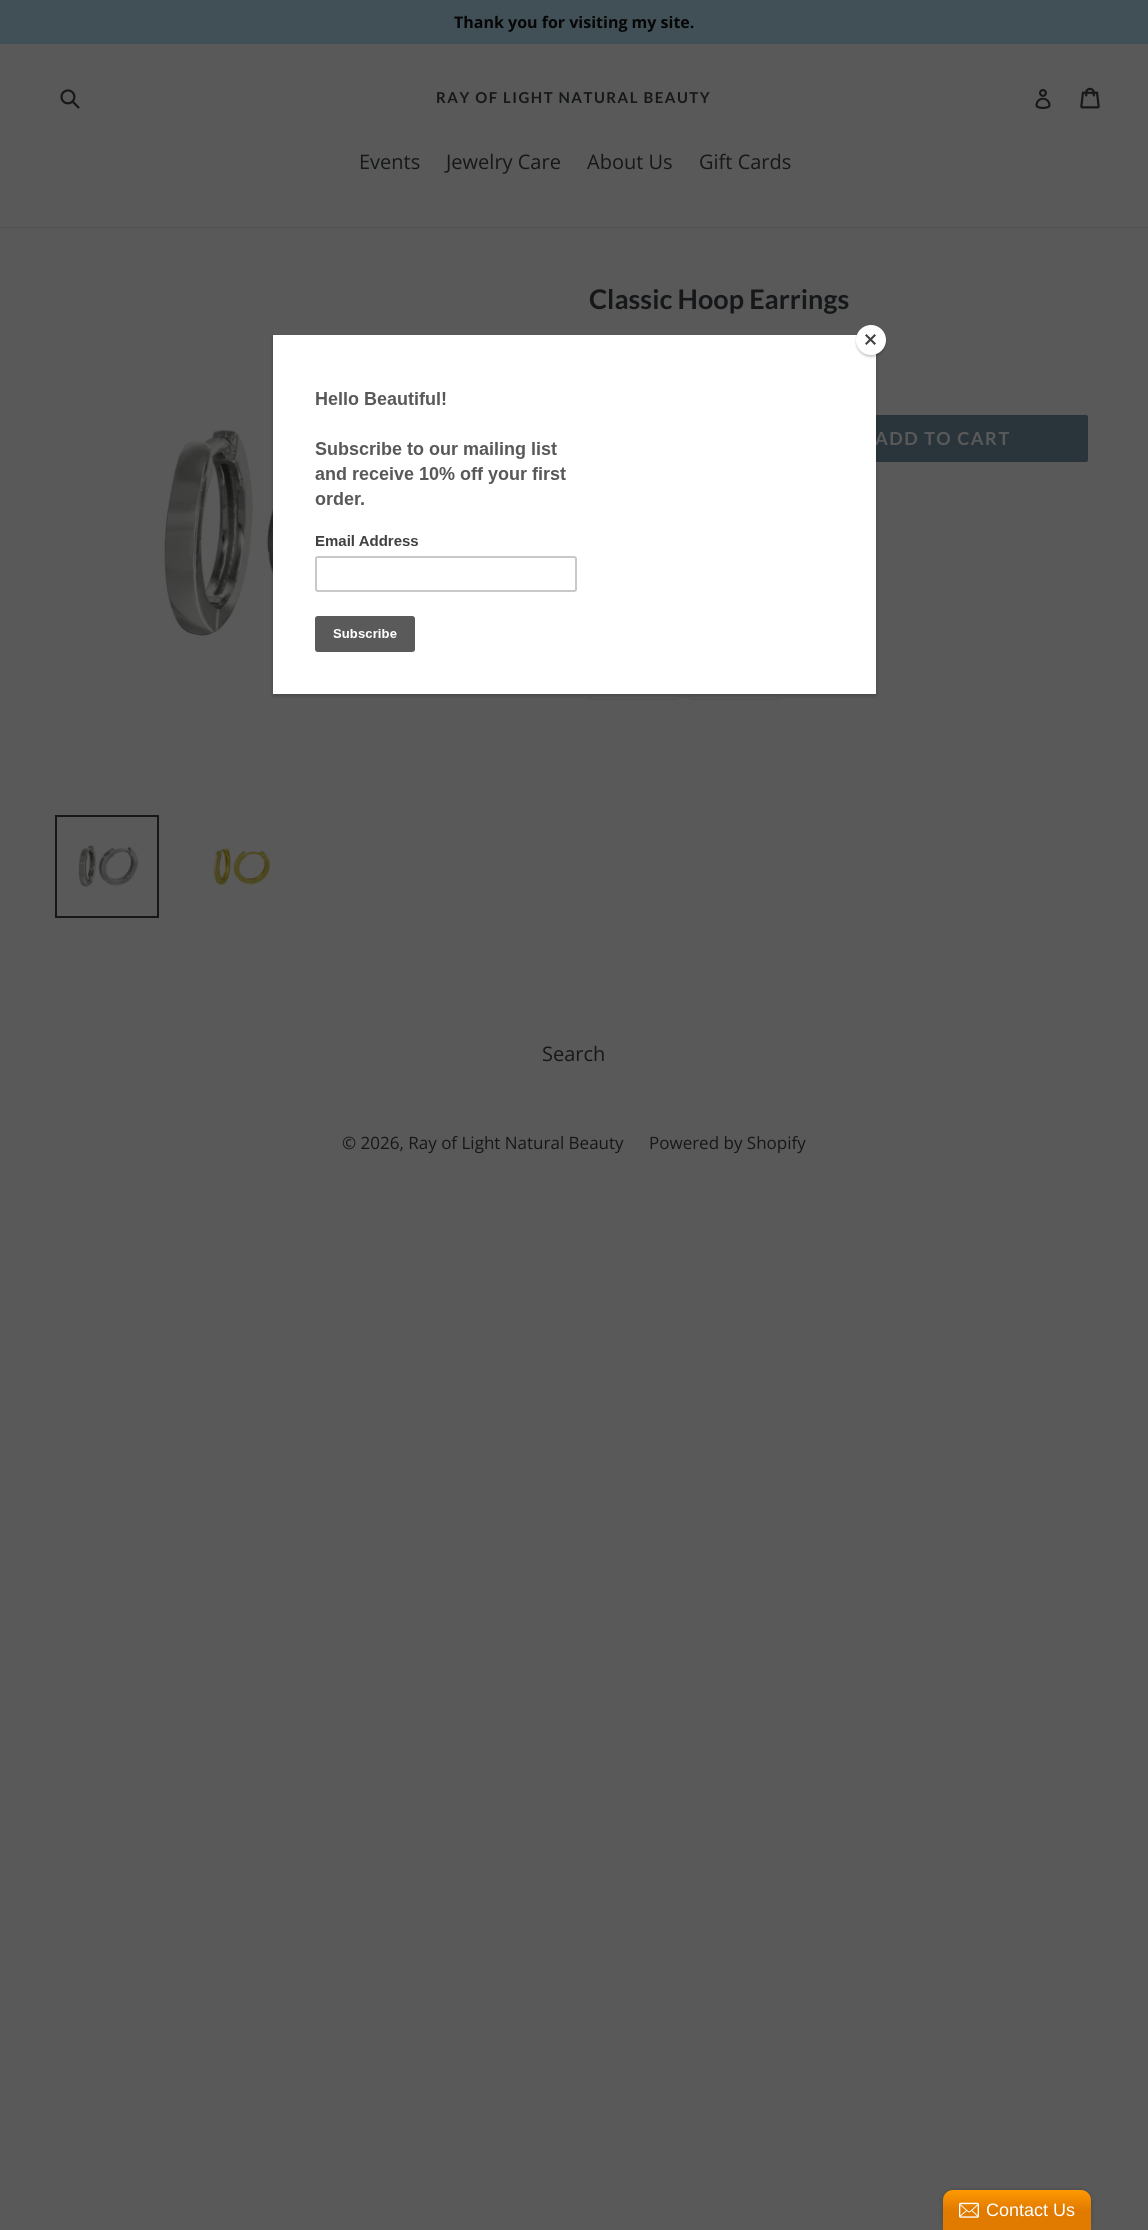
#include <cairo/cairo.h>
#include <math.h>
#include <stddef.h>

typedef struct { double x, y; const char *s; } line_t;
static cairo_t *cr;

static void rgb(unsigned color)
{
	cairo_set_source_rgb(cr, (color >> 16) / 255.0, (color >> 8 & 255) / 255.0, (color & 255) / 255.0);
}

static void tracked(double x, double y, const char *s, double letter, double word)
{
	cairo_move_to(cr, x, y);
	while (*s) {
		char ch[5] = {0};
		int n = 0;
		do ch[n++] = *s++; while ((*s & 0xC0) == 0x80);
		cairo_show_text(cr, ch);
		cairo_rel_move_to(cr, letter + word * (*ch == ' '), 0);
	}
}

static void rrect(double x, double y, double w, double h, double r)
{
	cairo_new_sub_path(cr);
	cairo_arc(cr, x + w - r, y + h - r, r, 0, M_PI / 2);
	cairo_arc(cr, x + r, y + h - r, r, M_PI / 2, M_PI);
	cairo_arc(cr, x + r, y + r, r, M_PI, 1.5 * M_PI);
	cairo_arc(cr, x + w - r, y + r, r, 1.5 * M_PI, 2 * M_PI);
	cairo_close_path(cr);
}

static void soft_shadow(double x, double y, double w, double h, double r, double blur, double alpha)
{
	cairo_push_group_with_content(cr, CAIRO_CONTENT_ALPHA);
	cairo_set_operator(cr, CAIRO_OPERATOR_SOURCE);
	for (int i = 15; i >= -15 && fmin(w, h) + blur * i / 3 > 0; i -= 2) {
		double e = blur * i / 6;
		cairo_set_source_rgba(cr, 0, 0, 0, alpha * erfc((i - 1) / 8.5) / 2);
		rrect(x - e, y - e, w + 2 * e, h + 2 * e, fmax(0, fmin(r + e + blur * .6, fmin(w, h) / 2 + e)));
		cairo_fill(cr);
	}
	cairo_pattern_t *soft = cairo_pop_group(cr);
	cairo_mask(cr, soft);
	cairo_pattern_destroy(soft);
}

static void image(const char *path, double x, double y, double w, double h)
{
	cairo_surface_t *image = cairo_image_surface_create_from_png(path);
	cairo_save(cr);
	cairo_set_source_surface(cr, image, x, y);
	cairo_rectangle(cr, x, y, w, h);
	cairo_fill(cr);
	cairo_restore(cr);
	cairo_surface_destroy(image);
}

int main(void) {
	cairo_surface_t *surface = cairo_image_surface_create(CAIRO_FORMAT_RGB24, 1148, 2230);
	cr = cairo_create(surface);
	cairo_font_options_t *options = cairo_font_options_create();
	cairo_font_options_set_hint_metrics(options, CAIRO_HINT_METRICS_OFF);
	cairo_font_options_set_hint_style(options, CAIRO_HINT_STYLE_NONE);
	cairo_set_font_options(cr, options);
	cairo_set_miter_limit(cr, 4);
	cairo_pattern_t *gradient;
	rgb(0x595959);
	cairo_paint(cr);
	rgb(0x415056);
	cairo_rectangle(cr, 0, 0, 1148, 44);
	cairo_fill(cr);
	image("img/1.png", 60, 89, 20, 20);
	image("img/2.png", 1035, 89, 16, 20);
	image("img/3.png", 1080, 87, 20, 22);
	rgb(0x515252);
	cairo_rectangle(cr, 0, 227, 1148, 1);
	cairo_fill(cr);
	rgb(0x2a353b);
	rrect(796, 415, 292, 47, 2);
	cairo_fill(cr);
	rrect(589.5, 666.5, 89, 33, 1.5);
	rgb(0x515252);
	cairo_set_line_width(cr, 1);
	cairo_stroke(cr);
	rrect(689.5, 666.5, 89, 33, 1.5);
	cairo_stroke(cr);
	image("img/4.png", 164, 429, 109, 209);
	cairo_rectangle(cr, 56, 816, 102, 101);
	rgb(0x151719);
	cairo_set_line_width(cr, 2);
	cairo_stroke(cr);
	image("img/5.png", 78, 845, 60, 42);
	image("img/6.png", 213, 847, 58, 39);
	rgb(0x000000);
	soft_shadow(273, 337, 603, 359, 0, 2, 0.2);
	soft_shadow(943, 2190, 148, 40, 10, 2.5, 0.2);
	gradient = cairo_pattern_create_linear(1017, 2190, 1017, 2230);
	cairo_pattern_add_color_stop_rgba(gradient, 0, 1, 0.6, 0, 1);
	cairo_pattern_add_color_stop_rgba(gradient, 0.5, 0.882, 0.482, 0, 1);
	cairo_set_source(cr, gradient);
	cairo_pattern_destroy(gradient);
	cairo_new_path(cr);
	cairo_move_to(cr, 953, 2190);
	cairo_line_to(cr, 1081, 2190);
	cairo_curve_to(cr, 1086.5, 2190, 1091, 2194.5, 1091, 2200);
	cairo_line_to(cr, 1091, 2230);
	cairo_line_to(cr, 943, 2230);
	cairo_line_to(cr, 943, 2200);
	cairo_curve_to(cr, 943, 2194.5, 947.5, 2190, 953, 2190);
	cairo_close_path(cr);
	cairo_fill(cr);
	image("img/8.png", 959, 2202, 20, 16);
	cairo_select_font_face(cr, "Open Sans", CAIRO_FONT_SLANT_NORMAL, CAIRO_FONT_WEIGHT_BOLD);
	cairo_set_font_size(cr, 16);
	rgb(0x060606);
	cairo_move_to(cr, 454, 28);
	cairo_show_text(cr, "Thank you for visiting my site.");
	cairo_select_font_face(cr, "Lato", CAIRO_FONT_SLANT_NORMAL, CAIRO_FONT_WEIGHT_BOLD);
	cairo_set_font_size(cr, 15);
	rgb(0x151719);
	tracked(436, 103, "RAY OF LIGHT NATURAL BEAUTY", 1.5, 0);
	cairo_select_font_face(cr, "Open Sans", CAIRO_FONT_SLANT_NORMAL, CAIRO_FONT_WEIGHT_NORMAL);
	cairo_set_font_size(cr, 20);
	{
		static const line_t items[] = {
			{359, 169, "Events"},
			{446, 169, "Jewelry Care"},
			{587, 169, "About Us"},
			{699, 169, "Gift Cards"},
		};
		for (size_t i = 0; i < sizeof items / sizeof *items; i++) {
			cairo_move_to(cr, items[i].x, items[i].y);
			cairo_show_text(cr, items[i].s);
		}
	}
	cairo_select_font_face(cr, "Lato", CAIRO_FONT_SLANT_NORMAL, CAIRO_FONT_WEIGHT_BOLD);
	cairo_set_font_size(cr, 27);
	cairo_move_to(cr, 589, 309);
	cairo_show_text(cr, "Classic Hoop Earrings");
	cairo_set_font_size(cr, 18);
	rgb(0x595959);
	tracked(875, 445, "ADD TO CART", 1.5, 0);
	cairo_select_font_face(cr, "Open Sans", CAIRO_FONT_SLANT_NORMAL, CAIRO_FONT_WEIGHT_NORMAL);
	cairo_set_font_size(cr, 20);
	rgb(0x151719);
	cairo_move_to(cr, 542, 1061);
	cairo_show_text(cr, "Search");
	cairo_set_font_size(cr, 17);
	cairo_move_to(cr, 342, 1149);
	cairo_show_text(cr, "© 2026, Ray of Light Natural Beauty");
	cairo_move_to(cr, 649, 1149);
	cairo_show_text(cr, "Powered by Shopify");
	image("img/7.png", 273, 335, 603, 359);
	rgb(0x000000);
	soft_shadow(856, 327, 30, 30, 15, 1, 0.2);
	rgb(0xffffff);
	cairo_arc(cr, 871, 340, 15, 0, 2 * M_PI);
	cairo_fill(cr);
	rgb(0x414141);
	cairo_new_path(cr);
	cairo_move_to(cr, 874.5, 334);
	cairo_line_to(cr, 876, 335.5);
	cairo_line_to(cr, 866.5, 345);
	cairo_line_to(cr, 865, 343.5);
	cairo_close_path(cr);
	cairo_fill(cr);
	cairo_new_path(cr);
	cairo_move_to(cr, 865, 335.5);
	cairo_line_to(cr, 866.5, 334);
	cairo_line_to(cr, 876, 343.5);
	cairo_line_to(cr, 874.5, 345);
	cairo_close_path(cr);
	cairo_fill(cr);
	cairo_select_font_face(cr, "Liberation Sans", CAIRO_FONT_SLANT_NORMAL, CAIRO_FONT_WEIGHT_NORMAL);
	cairo_set_font_size(cr, 18);
	rgb(0xffffff);
	cairo_move_to(cr, 986, 2216);
	cairo_show_text(cr, "Contact Us");
	cairo_surface_write_to_png(surface, "page.png");
	cairo_font_options_destroy(options);
	cairo_destroy(cr);
	cairo_surface_destroy(surface);
	return 0;
}
